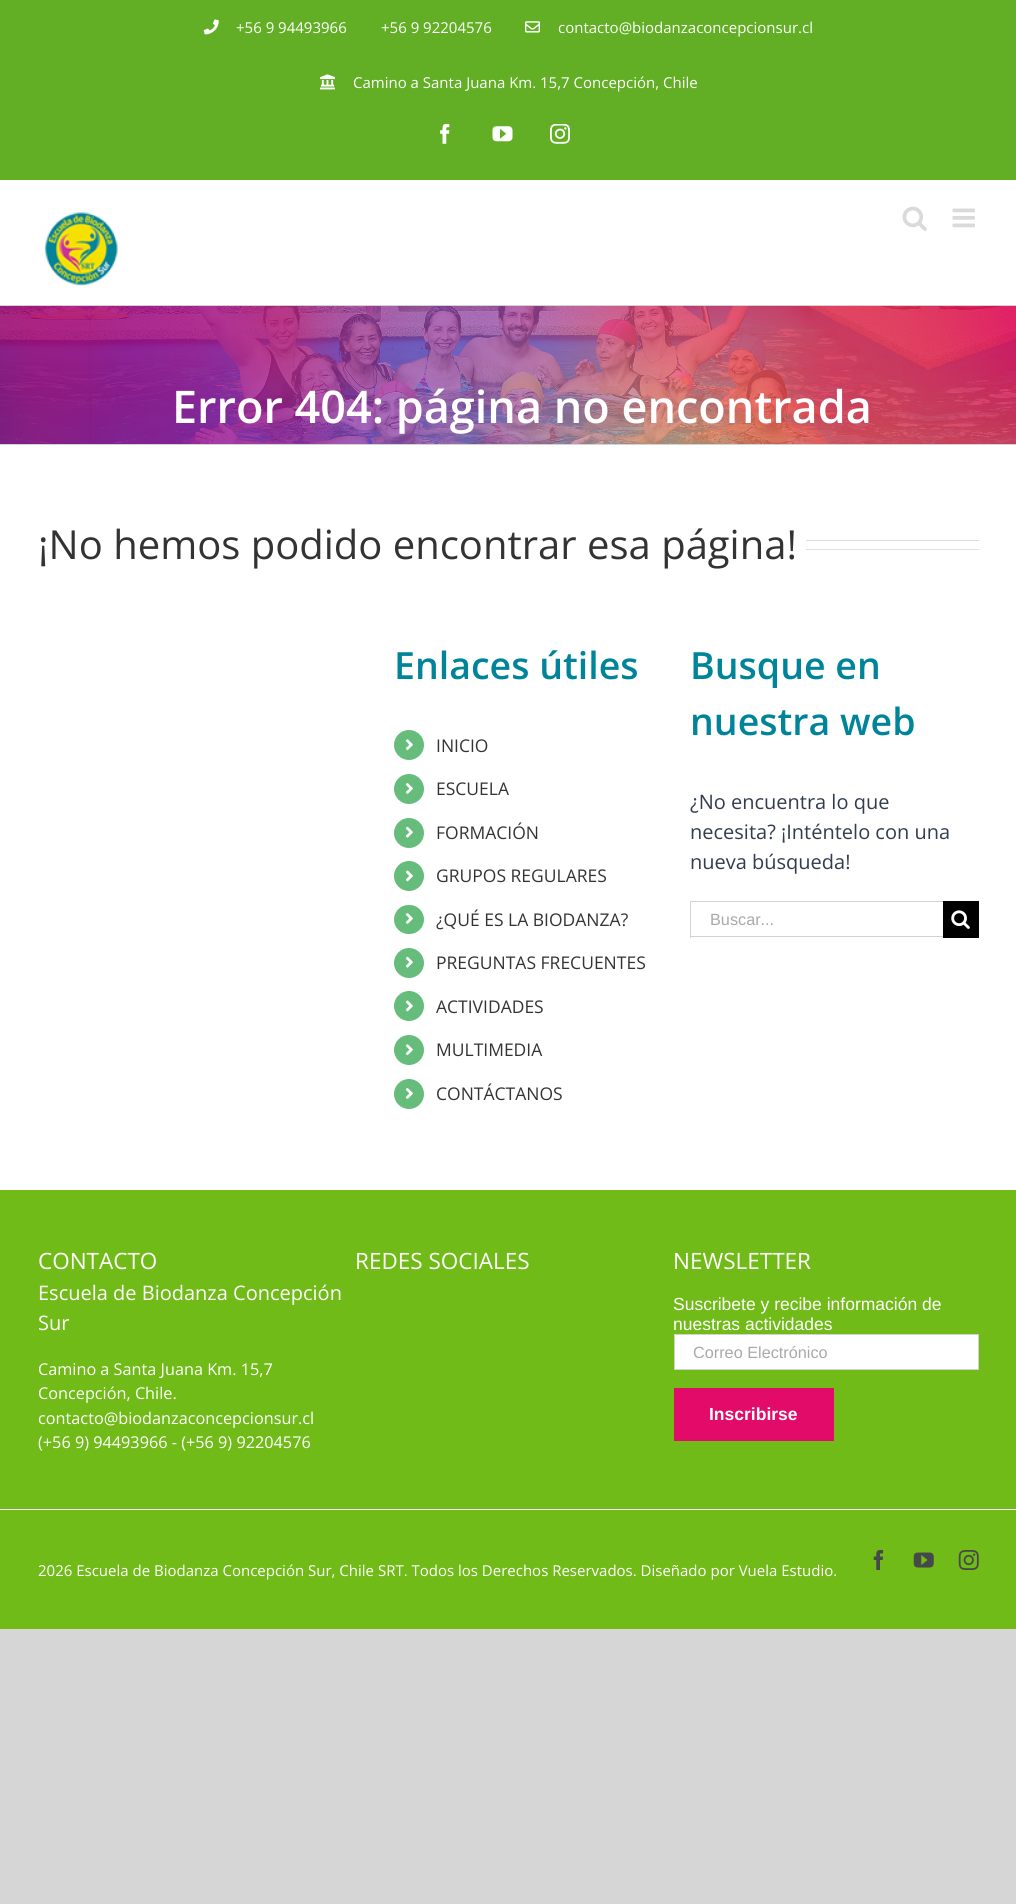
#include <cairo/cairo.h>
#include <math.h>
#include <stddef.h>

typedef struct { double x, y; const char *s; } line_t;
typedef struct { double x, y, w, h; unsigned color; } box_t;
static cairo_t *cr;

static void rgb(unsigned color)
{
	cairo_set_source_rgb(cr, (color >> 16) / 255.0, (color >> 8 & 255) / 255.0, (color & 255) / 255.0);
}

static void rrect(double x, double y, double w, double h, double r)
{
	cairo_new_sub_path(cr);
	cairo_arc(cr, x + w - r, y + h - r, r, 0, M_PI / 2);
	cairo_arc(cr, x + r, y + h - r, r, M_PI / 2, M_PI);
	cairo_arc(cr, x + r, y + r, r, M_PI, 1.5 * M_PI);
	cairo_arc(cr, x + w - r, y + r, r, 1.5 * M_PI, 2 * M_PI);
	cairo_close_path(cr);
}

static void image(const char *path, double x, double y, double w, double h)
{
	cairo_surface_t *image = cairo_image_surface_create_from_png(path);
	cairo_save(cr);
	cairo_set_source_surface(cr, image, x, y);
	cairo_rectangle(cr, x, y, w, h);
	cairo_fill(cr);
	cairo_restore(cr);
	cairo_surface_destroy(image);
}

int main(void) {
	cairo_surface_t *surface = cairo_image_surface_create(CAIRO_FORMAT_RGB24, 1016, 1904);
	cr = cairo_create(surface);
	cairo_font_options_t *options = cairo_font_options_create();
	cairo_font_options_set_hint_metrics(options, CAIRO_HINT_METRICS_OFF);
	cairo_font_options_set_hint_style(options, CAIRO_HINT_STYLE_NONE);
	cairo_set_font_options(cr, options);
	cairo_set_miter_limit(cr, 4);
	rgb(0xd7d6d6);
	cairo_paint(cr);
	rgb(0xffffff);
	cairo_rectangle(cr, 0, 180, 1016, 1010);
	cairo_fill(cr);
	rgb(0x62af25);
	cairo_rectangle(cr, 0, 0, 1016, 180);
	cairo_fill(cr);
	image("img/1.png", 203, 19, 16, 16);
	image("img/2.png", 525, 21, 15, 12);
	image("img/3.png", 320, 74, 15, 16);
	image("img/4.png", 440, 124, 10, 20);
	image("img/5.png", 492, 126, 21, 16);
	image("img/6.png", 550, 124, 20, 20);
	image("img/7.png", 44, 212, 74, 74);
	image("img/8.png", 902, 206, 25, 25);
	image("img/9.png", 952, 208, 23, 20);
	image("img/10.png", 0, 306, 1016, 138);
	{
		static const box_t items[] = {
			{0, 305, 1016, 1, 0xd2d3d4},
			{0, 444, 1016, 1, 0xd2d3d4},
			{806, 540, 173, 1, 0xe0dede},
			{806, 549, 173, 1, 0xe0dede},
		};
		for (size_t i = 0; i < sizeof items / sizeof *items; i++) {
			rgb(items[i].color);
			cairo_rectangle(cr, items[i].x, items[i].y, items[i].w, items[i].h);
			cairo_fill(cr);
		}
	}
	rgb(0x65bc7b);
	cairo_arc(cr, 409, 745, 15, 0, 2 * M_PI);
	cairo_fill(cr);
	image("img/11.png", 405, 739, 8, 12);
	cairo_arc(cr, 409, 789, 15, 0, 2 * M_PI);
	cairo_fill(cr);
	image("img/12.png", 405, 783, 8, 11);
	cairo_arc(cr, 409, 833, 15, 0, 2 * M_PI);
	cairo_fill(cr);
	image("img/13.png", 405, 826, 8, 12);
	cairo_arc(cr, 409, 876, 15, 0, 2 * M_PI);
	cairo_fill(cr);
	image("img/14.png", 405, 870, 8, 12);
	rrect(394, 905, 30, 29, 14.5);
	cairo_fill(cr);
	image("img/12.png", 405, 913, 8, 11);
	cairo_arc(cr, 409, 963, 15, 0, 2 * M_PI);
	cairo_fill(cr);
	image("img/13.png", 405, 956, 8, 12);
	cairo_arc(cr, 409, 1006, 15, 0, 2 * M_PI);
	cairo_fill(cr);
	image("img/14.png", 405, 1000, 8, 12);
	cairo_arc(cr, 409, 1050, 15, 0, 2 * M_PI);
	cairo_fill(cr);
	image("img/11.png", 405, 1044, 8, 12);
	cairo_arc(cr, 409, 1094, 15, 0, 2 * M_PI);
	cairo_fill(cr);
	image("img/12.png", 405, 1088, 8, 11);
	{
		static const box_t items[] = {
			{690, 901, 253, 1, 0xd2d2d2},
			{690, 936, 253, 1, 0xd2d2d2},
			{690, 901, 1, 37, 0xd2d2d2},
			{943, 901, 36, 37, 0x000000},
		};
		for (size_t i = 0; i < sizeof items / sizeof *items; i++) {
			rgb(items[i].color);
			cairo_rectangle(cr, items[i].x, items[i].y, items[i].w, items[i].h);
			cairo_fill(cr);
		}
	}
	image("img/15.png", 951, 910, 19, 19);
	rgb(0x71bb19);
	cairo_rectangle(cr, 0, 1190, 1016, 319);
	cairo_fill(cr);
	rgb(0xffffff);
	cairo_rectangle(cr, 674.5, 1334.5, 304, 35);
	cairo_fill_preserve(cr);
	rgb(0xd2d2d2);
	cairo_set_line_width(cr, 1);
	cairo_stroke(cr);
	{
		static const box_t items[] = {
			{674, 1388, 160, 53, 0xe20b69},
			{0, 1510, 1016, 119, 0x71bb19},
			{0, 1509, 1016, 1, 0xffffff},
		};
		for (size_t i = 0; i < sizeof items / sizeof *items; i++) {
			rgb(items[i].color);
			cairo_rectangle(cr, items[i].x, items[i].y, items[i].w, items[i].h);
			cairo_fill(cr);
		}
	}
	image("img/16.png", 873, 1550, 11, 20);
	image("img/17.png", 913, 1552, 21, 16);
	image("img/18.png", 958, 1550, 21, 20);
	cairo_select_font_face(cr, "Open Sans", CAIRO_FONT_SLANT_NORMAL, CAIRO_FONT_WEIGHT_NORMAL);
	cairo_set_font_size(cr, 15);
	{
		static const line_t items[] = {
			{236, 33, "+56 9 94493966"},
			{381, 33, "+56 9 92204576"},
			{558, 33, "contacto@biodanzaconcepcionsur.cl"},
			{353, 88, "Camino a Santa Juana Km. 15,7 Concepción, Chile"},
		};
		for (size_t i = 0; i < sizeof items / sizeof *items; i++) {
			cairo_move_to(cr, items[i].x, items[i].y);
			cairo_show_text(cr, items[i].s);
		}
	}
	cairo_select_font_face(cr, "Open Sans SemiBold", CAIRO_FONT_SLANT_NORMAL, CAIRO_FONT_WEIGHT_NORMAL);
	cairo_set_font_size(cr, 45);
	cairo_move_to(cr, 172, 423);
	cairo_show_text(cr, "Error 404: página no encontrada");
	cairo_select_font_face(cr, "Open Sans", CAIRO_FONT_SLANT_NORMAL, CAIRO_FONT_WEIGHT_NORMAL);
	cairo_set_font_size(cr, 40);
	rgb(0x333333);
	cairo_move_to(cr, 38, 559);
	cairo_show_text(cr, "¡No hemos podido encontrar esa página!");
	cairo_select_font_face(cr, "Open Sans SemiBold", CAIRO_FONT_SLANT_NORMAL, CAIRO_FONT_WEIGHT_NORMAL);
	cairo_set_font_size(cr, 37.5);
	rgb(0x008499);
	cairo_move_to(cr, 394, 679);
	cairo_show_text(cr, "Enlaces útiles");
	cairo_select_font_face(cr, "Open Sans", CAIRO_FONT_SLANT_NORMAL, CAIRO_FONT_WEIGHT_NORMAL);
	cairo_set_font_size(cr, 17.5);
	rgb(0x333333);
	{
		static const line_t items[] = {
			{436, 752, "INICIO"},
			{436, 795, "ESCUELA"},
			{436, 839, "FORMACIÓN"},
			{436, 882, "GRUPOS REGULARES"},
			{436, 926, "¿QUÉ ES LA BIODANZA?"},
			{436, 969, "PREGUNTAS FRECUENTES"},
			{436, 1013, "ACTIVIDADES"},
			{436, 1056, "MULTIMEDIA"},
			{436, 1100, "CONTÁCTANOS"},
		};
		for (size_t i = 0; i < sizeof items / sizeof *items; i++) {
			cairo_move_to(cr, items[i].x, items[i].y);
			cairo_show_text(cr, items[i].s);
		}
	}
	cairo_select_font_face(cr, "Open Sans SemiBold", CAIRO_FONT_SLANT_NORMAL, CAIRO_FONT_WEIGHT_NORMAL);
	cairo_set_font_size(cr, 37.5);
	rgb(0x008499);
	cairo_move_to(cr, 690, 679);
	cairo_show_text(cr, "Busque en");
	cairo_move_to(cr, 690, 735);
	cairo_show_text(cr, "nuestra web");
	cairo_select_font_face(cr, "Open Sans", CAIRO_FONT_SLANT_NORMAL, CAIRO_FONT_WEIGHT_NORMAL);
	cairo_set_font_size(cr, 20);
	rgb(0x333c4e);
	{
		static const line_t items[] = {
			{690, 809, "¿No encuentra lo que"},
			{690, 839, "necesita? ¡Inténtelo con una"},
			{690, 869, "nueva búsqueda!"},
		};
		for (size_t i = 0; i < sizeof items / sizeof *items; i++) {
			cairo_move_to(cr, items[i].x, items[i].y);
			cairo_show_text(cr, items[i].s);
		}
	}
	cairo_select_font_face(cr, "Liberation Sans", CAIRO_FONT_SLANT_NORMAL, CAIRO_FONT_WEIGHT_NORMAL);
	cairo_set_font_size(cr, 16.25);
	rgb(0xaaa9a9);
	cairo_move_to(cr, 710, 925);
	cairo_show_text(cr, "Buscar...");
	cairo_select_font_face(cr, "Open Sans", CAIRO_FONT_SLANT_NORMAL, CAIRO_FONT_WEIGHT_NORMAL);
	cairo_set_font_size(cr, 22.5);
	rgb(0xffffff);
	cairo_move_to(cr, 38, 1269);
	cairo_show_text(cr, "CONTACTO");
	cairo_set_font_size(cr, 20);
	cairo_move_to(cr, 38, 1300);
	cairo_show_text(cr, "Escuela de Biodanza Concepción");
	cairo_move_to(cr, 38, 1330);
	cairo_show_text(cr, "Sur");
	cairo_set_font_size(cr, 16.25);
	{
		static const line_t items[] = {
			{38, 1375, "Camino a Santa Juana Km. 15,7"},
			{38, 1399, "Concepción, Chile."},
			{38, 1424, "contacto@biodanzaconcepcionsur.cl"},
			{38, 1448, "(+56 9) 94493966 - (+56 9) 92204576"},
		};
		for (size_t i = 0; i < sizeof items / sizeof *items; i++) {
			cairo_move_to(cr, items[i].x, items[i].y);
			cairo_show_text(cr, items[i].s);
		}
	}
	cairo_set_font_size(cr, 22.5);
	cairo_move_to(cr, 355, 1269);
	cairo_show_text(cr, "REDES SOCIALES");
	cairo_move_to(cr, 673, 1269);
	cairo_show_text(cr, "NEWSLETTER");
	cairo_select_font_face(cr, "Liberation Sans", CAIRO_FONT_SLANT_NORMAL, CAIRO_FONT_WEIGHT_NORMAL);
	cairo_set_font_size(cr, 17.5);
	cairo_move_to(cr, 673, 1310);
	cairo_show_text(cr, "Suscribete y recibe información de");
	cairo_move_to(cr, 673, 1330);
	cairo_show_text(cr, "nuestras actividades");
	cairo_set_font_size(cr, 16.25);
	rgb(0xaaa9a9);
	cairo_move_to(cr, 693, 1358);
	cairo_show_text(cr, "Correo Electrónico");
	cairo_select_font_face(cr, "Liberation Sans", CAIRO_FONT_SLANT_NORMAL, CAIRO_FONT_WEIGHT_BOLD);
	cairo_set_font_size(cr, 17.5);
	rgb(0xffffff);
	cairo_move_to(cr, 709, 1420);
	cairo_show_text(cr, "Inscribirse");
	cairo_select_font_face(cr, "Open Sans", CAIRO_FONT_SLANT_NORMAL, CAIRO_FONT_WEIGHT_NORMAL);
	cairo_set_font_size(cr, 15);
	cairo_move_to(cr, 38, 1576);
	cairo_show_text(cr, "2026 Escuela de Biodanza Concepción Sur, Chile SRT. Todos los Derechos Reservados. Diseñado por Vuela Estudio.");
	cairo_surface_write_to_png(surface, "page.png");
	cairo_font_options_destroy(options);
	cairo_destroy(cr);
	cairo_surface_destroy(surface);
	return 0;
}
